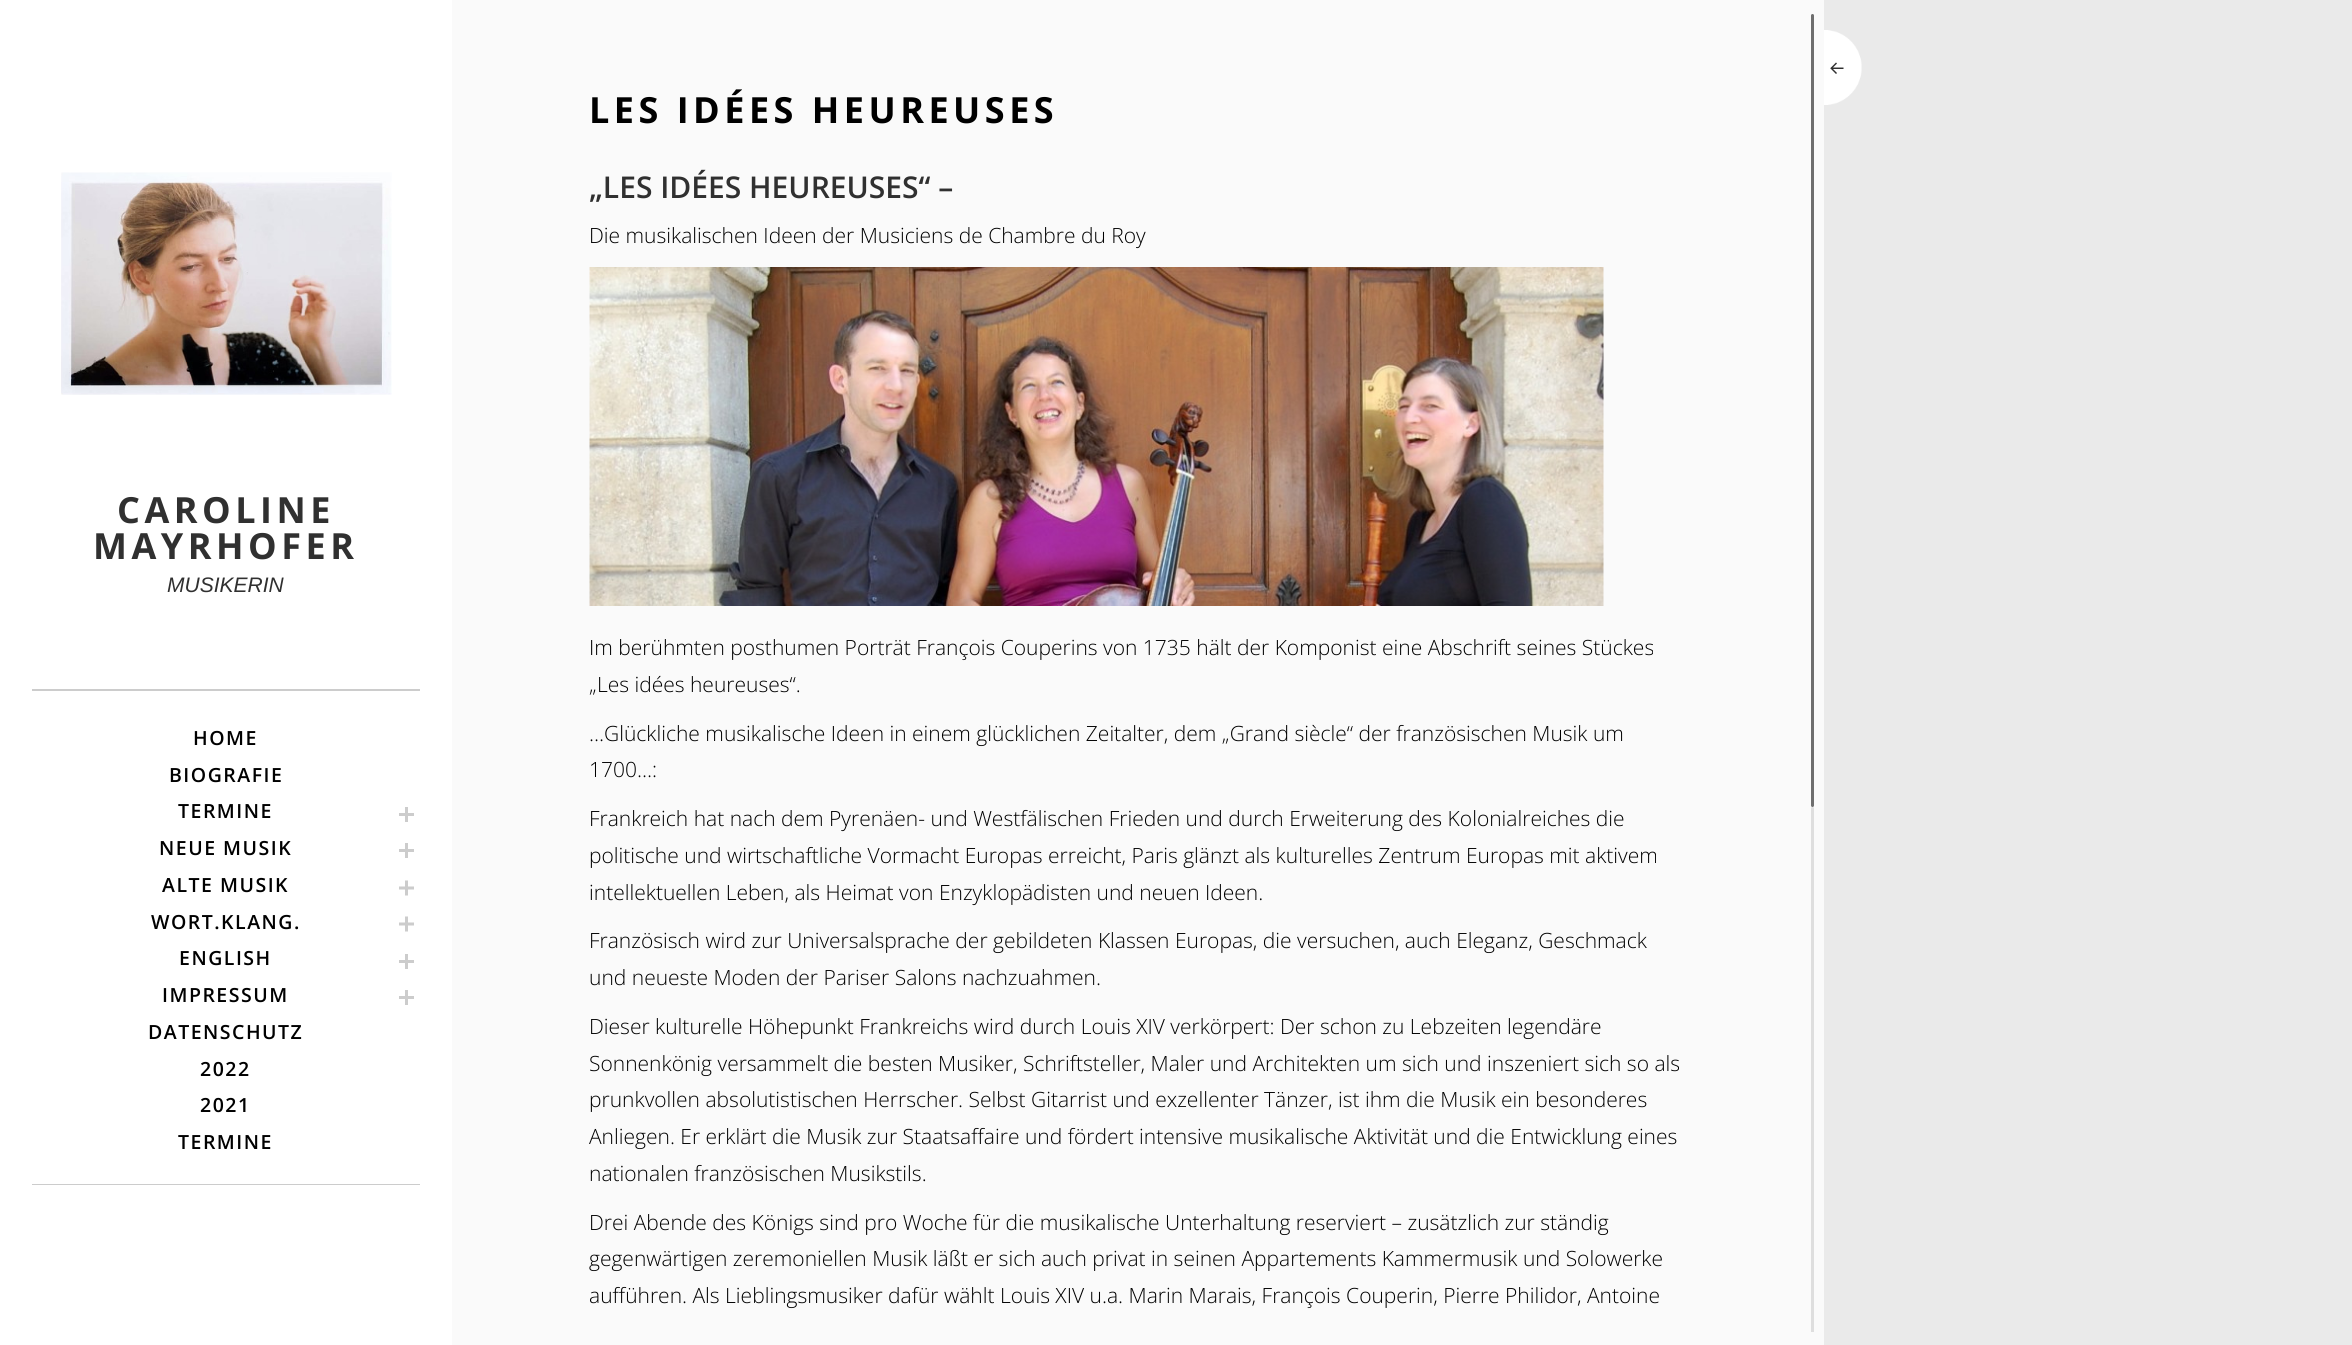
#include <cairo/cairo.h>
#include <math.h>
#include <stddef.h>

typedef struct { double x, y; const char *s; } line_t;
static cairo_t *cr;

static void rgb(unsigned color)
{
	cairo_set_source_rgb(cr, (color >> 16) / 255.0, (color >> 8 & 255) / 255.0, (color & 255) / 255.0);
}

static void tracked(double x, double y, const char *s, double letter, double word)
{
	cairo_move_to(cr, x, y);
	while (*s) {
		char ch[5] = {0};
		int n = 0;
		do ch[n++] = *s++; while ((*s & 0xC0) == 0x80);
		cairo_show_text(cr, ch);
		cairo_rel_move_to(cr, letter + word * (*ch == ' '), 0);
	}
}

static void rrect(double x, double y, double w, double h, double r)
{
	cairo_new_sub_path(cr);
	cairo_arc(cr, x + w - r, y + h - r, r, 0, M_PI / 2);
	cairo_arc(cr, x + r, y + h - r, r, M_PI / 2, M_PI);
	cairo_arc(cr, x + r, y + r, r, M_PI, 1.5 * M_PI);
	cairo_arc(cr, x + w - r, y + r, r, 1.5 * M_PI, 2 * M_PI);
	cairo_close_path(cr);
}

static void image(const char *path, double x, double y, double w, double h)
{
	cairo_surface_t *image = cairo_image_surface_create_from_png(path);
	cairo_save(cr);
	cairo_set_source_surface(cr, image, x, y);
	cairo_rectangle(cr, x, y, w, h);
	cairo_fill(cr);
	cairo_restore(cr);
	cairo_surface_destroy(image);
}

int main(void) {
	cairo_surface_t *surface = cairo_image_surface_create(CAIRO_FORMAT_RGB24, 2352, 1345);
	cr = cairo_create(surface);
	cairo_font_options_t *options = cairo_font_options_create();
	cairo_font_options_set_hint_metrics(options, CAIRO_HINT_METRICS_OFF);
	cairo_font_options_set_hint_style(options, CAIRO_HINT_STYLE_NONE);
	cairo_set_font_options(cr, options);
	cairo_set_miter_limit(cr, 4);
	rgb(0xeaeaea);
	cairo_paint(cr);
	rgb(0xffffff);
	cairo_rectangle(cr, 0, 0, 452, 1345);
	cairo_fill(cr);
	image("img/1.png", 61, 172, 331, 223);
	rgb(0xcccccc);
	cairo_rectangle(cr, 32, 689, 388, 2);
	cairo_fill(cr);
	cairo_rectangle(cr, 32, 1184, 388, 1);
	cairo_fill(cr);
	image("img/2.png", 399, 807, 15, 15);
	image("img/2.png", 399, 843, 15, 15);
	image("img/3.png", 399, 880, 15, 16);
	image("img/3.png", 399, 916, 15, 16);
	image("img/2.png", 399, 954, 15, 15);
	image("img/2.png", 399, 990, 15, 15);
	image("img/4.png", 1824, 30, 38, 75);
	image("img/5.png", 1830, 62, 14, 12);
	rgb(0xfafafa);
	cairo_rectangle(cr, 452, 0, 1372, 1345);
	cairo_fill(cr);
	image("img/6.png", 589, 267, 1015, 339);
	rgb(0x6e6e6e);
	rrect(1811, 14, 3, 793, 1.5);
	cairo_fill(cr);
	rgb(0xdedede);
	cairo_new_path(cr);
	cairo_move_to(cr, 1812.5, 807);
	cairo_curve_to(cr, 1813.5, 807, 1814, 807.5, 1814, 808.5);
	cairo_line_to(cr, 1814, 1332);
	cairo_line_to(cr, 1811, 1332);
	cairo_line_to(cr, 1811, 808.5);
	cairo_curve_to(cr, 1811, 807.5, 1811.5, 807, 1812.5, 807);
	cairo_close_path(cr);
	cairo_fill(cr);
	cairo_select_font_face(cr, "Open Sans", CAIRO_FONT_SLANT_NORMAL, CAIRO_FONT_WEIGHT_BOLD);
	cairo_set_font_size(cr, 36);
	rgb(0x303030);
	tracked(117, 523, "CAROLINE", 4.5, 0);
	tracked(93, 559, "MAYRHOFER", 4.5, 0);
	cairo_select_font_face(cr, "Liberation Sans", CAIRO_FONT_SLANT_ITALIC, CAIRO_FONT_WEIGHT_NORMAL);
	cairo_set_font_size(cr, 21);
	cairo_move_to(cr, 167, 592);
	cairo_show_text(cr, "MUSIKERIN");
	cairo_select_font_face(cr, "Open Sans SemiBold", CAIRO_FONT_SLANT_NORMAL, CAIRO_FONT_WEIGHT_NORMAL);
	cairo_set_font_size(cr, 19.5);
	rgb(0x000000);
	{
		static const line_t items[] = {
			{193, 745, "HOME"},
			{169, 782, "BIOGRAFIE"},
			{178, 818, "TERMINE"},
			{159, 855, "NEUE MUSIK"},
			{162, 892, "ALTE MUSIK"},
			{151, 929, "WORT.KLANG."},
			{179, 965, "ENGLISH"},
			{162, 1002, "IMPRESSUM"},
			{148, 1039, "DATENSCHUTZ"},
			{200, 1076, "2022"},
			{200, 1112, "2021"},
			{178, 1149, "TERMINE"},
		};
		for (size_t i = 0; i < sizeof items / sizeof *items; i++) {
			tracked(items[i].x, items[i].y, items[i].s, 1.5, 0);
		}
	}
	cairo_select_font_face(cr, "Open Sans", CAIRO_FONT_SLANT_NORMAL, CAIRO_FONT_WEIGHT_BOLD);
	cairo_set_font_size(cr, 36);
	tracked(589, 123, "LES IDÉES HEUREUSES", 4.5, 0);
	cairo_select_font_face(cr, "Open Sans SemiBold", CAIRO_FONT_SLANT_NORMAL, CAIRO_FONT_WEIGHT_NORMAL);
	cairo_set_font_size(cr, 30);
	rgb(0x303030);
	cairo_move_to(cr, 589, 198);
	cairo_show_text(cr, "„LES IDÉES HEUREUSES“ –");
	cairo_select_font_face(cr, "Open Sans Light", CAIRO_FONT_SLANT_NORMAL, CAIRO_FONT_WEIGHT_NORMAL);
	cairo_set_font_size(cr, 21);
	rgb(0x000000);
	{
		static const line_t items[] = {
			{589, 243, "Die musikalischen Ideen der Musiciens de Chambre du Roy"},
			{589, 655, "Im berühmten posthumen Porträt François Couperins von 1735 hält der Komponist eine Abschrift seines Stückes"},
			{589, 692, "„Les idées heureuses“."},
			{589, 741, "…Glückliche musikalische Ideen in einem glücklichen Zeitalter, dem „Grand siècle“ der französischen Musik um"},
			{589, 777, "1700…:"},
			{589, 826, "Frankreich hat nach dem Pyrenäen- und Westfälischen Frieden und durch Erweiterung des Kolonialreiches die"},
			{589, 863, "politische und wirtschaftliche Vormacht Europas erreicht, Paris glänzt als kulturelles Zentrum Europas mit aktivem"},
			{589, 900, "intellektuellen Leben, als Heimat von Enzyklopädisten und neuen Ideen."},
			{589, 948, "Französisch wird zur Universalsprache der gebildeten Klassen Europas, die versuchen, auch Eleganz, Geschmack"},
			{589, 985, "und neueste Moden der Pariser Salons nachzuahmen."},
			{589, 1034, "Dieser kulturelle Höhepunkt Frankreichs wird durch Louis XIV verkörpert: Der schon zu Lebzeiten legendäre"},
			{589, 1071, "Sonnenkönig versammelt die besten Musiker, Schriftsteller, Maler und Architekten um sich und inszeniert sich so als"},
			{589, 1107, "prunkvollen absolutistischen Herrscher. Selbst Gitarrist und exzellenter Tänzer, ist ihm die Musik ein besonderes"},
			{589, 1144, "Anliegen. Er erklärt die Musik zur Staatsaffaire und fördert intensive musikalische Aktivität und die Entwicklung eines"},
			{589, 1181, "nationalen französischen Musikstils."},
			{589, 1230, "Drei Abende des Königs sind pro Woche für die musikalische Unterhaltung reserviert – zusätzlich zur ständig"},
			{589, 1266, "gegenwärtigen zeremoniellen Musik läßt er sich auch privat in seinen Appartements Kammermusik und Solowerke"},
			{589, 1303, "aufführen. Als Lieblingsmusiker dafür wählt Louis XIV u.a. Marin Marais, François Couperin, Pierre Philidor, Antoine"},
		};
		for (size_t i = 0; i < sizeof items / sizeof *items; i++) {
			cairo_move_to(cr, items[i].x, items[i].y);
			cairo_show_text(cr, items[i].s);
		}
	}
	cairo_surface_write_to_png(surface, "page.png");
	cairo_font_options_destroy(options);
	cairo_destroy(cr);
	cairo_surface_destroy(surface);
	return 0;
}
